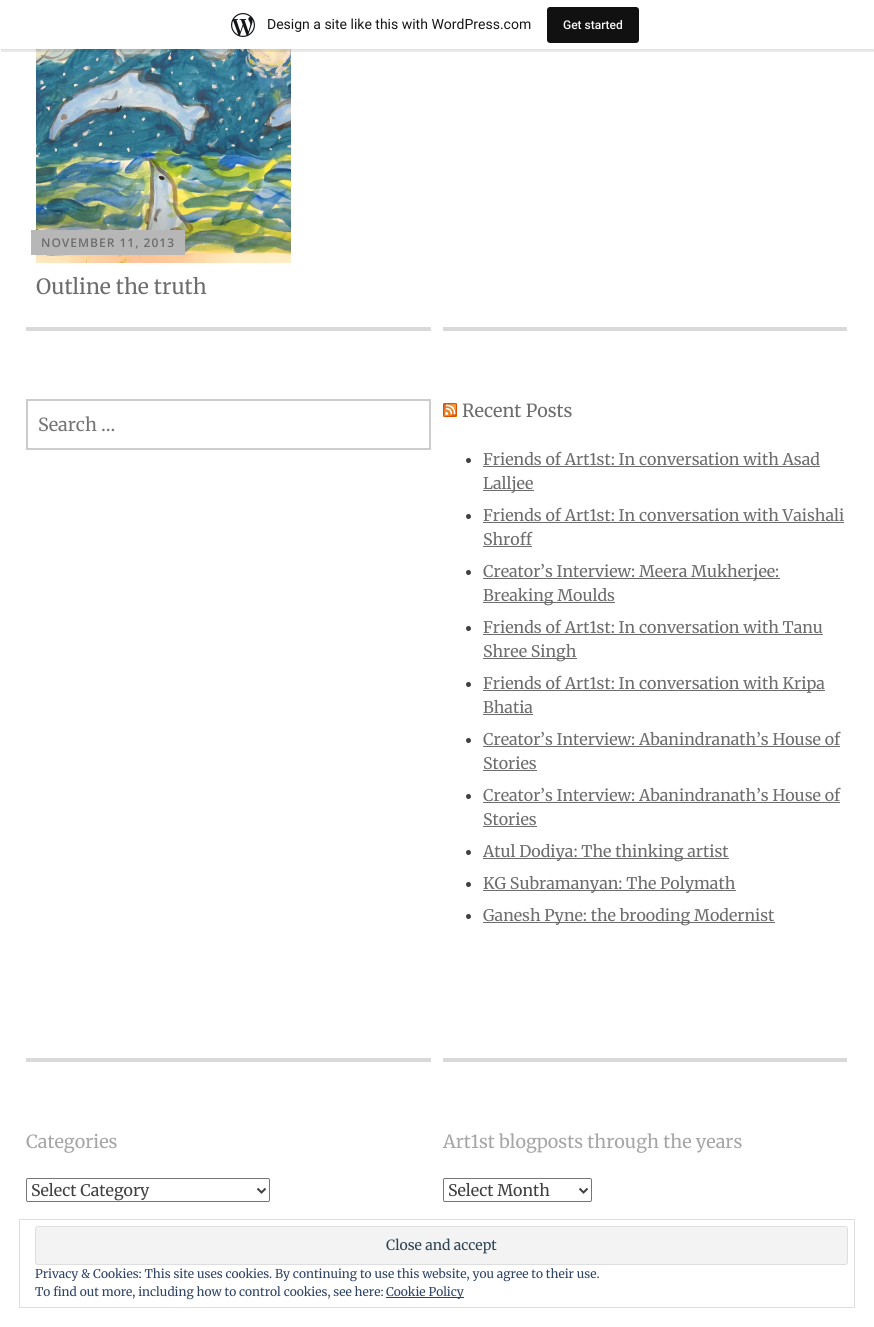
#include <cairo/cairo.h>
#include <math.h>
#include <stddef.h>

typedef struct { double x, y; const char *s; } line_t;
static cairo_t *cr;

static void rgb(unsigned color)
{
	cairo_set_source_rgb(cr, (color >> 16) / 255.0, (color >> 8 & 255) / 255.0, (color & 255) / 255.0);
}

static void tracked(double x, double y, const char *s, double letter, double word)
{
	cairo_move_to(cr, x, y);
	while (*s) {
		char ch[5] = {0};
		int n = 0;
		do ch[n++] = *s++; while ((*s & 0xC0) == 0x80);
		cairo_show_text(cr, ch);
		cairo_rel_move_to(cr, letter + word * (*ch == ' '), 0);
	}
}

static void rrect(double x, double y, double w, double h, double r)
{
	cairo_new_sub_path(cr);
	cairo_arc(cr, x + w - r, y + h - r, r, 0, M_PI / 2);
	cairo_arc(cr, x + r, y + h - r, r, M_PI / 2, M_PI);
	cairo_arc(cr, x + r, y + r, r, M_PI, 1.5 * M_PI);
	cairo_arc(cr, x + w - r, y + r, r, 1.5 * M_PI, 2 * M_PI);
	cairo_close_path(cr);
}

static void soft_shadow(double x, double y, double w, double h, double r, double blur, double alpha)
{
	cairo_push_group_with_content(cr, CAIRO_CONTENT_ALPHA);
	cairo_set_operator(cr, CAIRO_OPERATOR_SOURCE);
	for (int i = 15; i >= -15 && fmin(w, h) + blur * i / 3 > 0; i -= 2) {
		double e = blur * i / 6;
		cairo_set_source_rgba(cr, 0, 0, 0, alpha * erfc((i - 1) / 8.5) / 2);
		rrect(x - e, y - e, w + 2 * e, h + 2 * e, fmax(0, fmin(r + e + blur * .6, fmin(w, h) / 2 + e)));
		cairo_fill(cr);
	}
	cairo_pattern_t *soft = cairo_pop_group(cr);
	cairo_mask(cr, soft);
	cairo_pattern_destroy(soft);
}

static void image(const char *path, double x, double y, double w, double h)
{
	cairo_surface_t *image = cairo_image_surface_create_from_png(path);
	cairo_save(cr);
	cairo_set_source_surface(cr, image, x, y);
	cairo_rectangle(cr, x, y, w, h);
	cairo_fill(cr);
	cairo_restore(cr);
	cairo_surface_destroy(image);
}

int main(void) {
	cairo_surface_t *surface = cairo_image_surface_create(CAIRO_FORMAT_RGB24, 874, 1327);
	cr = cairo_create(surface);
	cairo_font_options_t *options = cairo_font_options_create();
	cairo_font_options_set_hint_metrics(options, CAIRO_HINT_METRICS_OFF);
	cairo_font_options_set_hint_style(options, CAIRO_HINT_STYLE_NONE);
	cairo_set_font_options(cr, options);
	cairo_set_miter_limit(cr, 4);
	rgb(0xffffff);
	cairo_paint(cr);
	image("img/2.png", 36, 49, 255, 214);
	rgb(0x000000);
	soft_shadow(0, 1, 874, 49, 0, 1, 0.05);
	cairo_set_source_rgba(cr, 0, 0, 0, 0.08);
	cairo_new_path(cr);
	cairo_move_to(cr, 1, 49);
	cairo_line_to(cr, 1, 52);
	cairo_line_to(cr, 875, 52);
	cairo_line_to(cr, 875, 3);
	cairo_line_to(cr, 874, 3);
	cairo_line_to(cr, 874, 49);
	cairo_close_path(cr);
	cairo_fill(cr);
	rgb(0xffffff);
	cairo_rectangle(cr, 0, 0, 874, 49);
	cairo_fill(cr);
	image("img/1.png", 231, 13, 24, 24);
	rgb(0x111111);
	rrect(547, 7, 92, 36, 3);
	cairo_fill(cr);
	rgb(0xb7b7b7);
	cairo_rectangle(cr, 31, 230, 154, 25);
	cairo_fill(cr);
	rgb(0xd9d9d9);
	cairo_rectangle(cr, 26, 327, 405, 4);
	cairo_fill(cr);
	cairo_rectangle(cr, 27, 400, 403, 49);
	rgb(0xcccccc);
	cairo_stroke(cr);
	rgb(0xd9d9d9);
	cairo_rectangle(cr, 443, 327, 404, 4);
	cairo_fill(cr);
	rgb(0xffa500);
	cairo_rectangle(cr, 443, 403, 14, 14);
	cairo_fill(cr);
	image("img/3.png", 443, 403, 14, 14);
	rgb(0x404040);
	cairo_arc(cr, 468.5, 460.5, 2.5, 0, 2 * M_PI);
	cairo_fill(cr);
	rgb(0x6d6d6d);
	cairo_rectangle(cr, 483, 466, 337, 1);
	cairo_fill(cr);
	cairo_rectangle(cr, 483, 490, 51, 1);
	cairo_fill(cr);
	rgb(0x404040);
	cairo_arc(cr, 468.5, 516.5, 2.5, 0, 2 * M_PI);
	cairo_fill(cr);
	rgb(0x6d6d6d);
	cairo_rectangle(cr, 483, 522, 361, 1);
	cairo_fill(cr);
	cairo_rectangle(cr, 483, 546, 49, 1);
	cairo_fill(cr);
	rgb(0x404040);
	cairo_arc(cr, 468.5, 572.5, 2.5, 0, 2 * M_PI);
	cairo_fill(cr);
	rgb(0x6d6d6d);
	cairo_rectangle(cr, 483, 578, 297, 1);
	cairo_fill(cr);
	cairo_rectangle(cr, 483, 602, 132, 1);
	cairo_fill(cr);
	rgb(0x404040);
	cairo_arc(cr, 468.5, 628.5, 2.5, 0, 2 * M_PI);
	cairo_fill(cr);
	rgb(0x6d6d6d);
	cairo_rectangle(cr, 483, 634, 340, 1);
	cairo_fill(cr);
	cairo_rectangle(cr, 483, 658, 94, 1);
	cairo_fill(cr);
	rgb(0x404040);
	cairo_arc(cr, 468.5, 684.5, 2.5, 0, 2 * M_PI);
	cairo_fill(cr);
	rgb(0x6d6d6d);
	cairo_rectangle(cr, 483, 690, 342, 1);
	cairo_fill(cr);
	cairo_rectangle(cr, 483, 714, 50, 1);
	cairo_fill(cr);
	rgb(0x404040);
	cairo_arc(cr, 468.5, 740.5, 2.5, 0, 2 * M_PI);
	cairo_fill(cr);
	rgb(0x6d6d6d);
	cairo_rectangle(cr, 483, 746, 357, 1);
	cairo_fill(cr);
	cairo_rectangle(cr, 483, 770, 54, 1);
	cairo_fill(cr);
	rgb(0x404040);
	cairo_arc(cr, 468.5, 796.5, 2.5, 0, 2 * M_PI);
	cairo_fill(cr);
	rgb(0x6d6d6d);
	cairo_rectangle(cr, 483, 802, 357, 1);
	cairo_fill(cr);
	cairo_rectangle(cr, 483, 826, 54, 1);
	cairo_fill(cr);
	rgb(0x404040);
	cairo_arc(cr, 468.5, 852.5, 2.5, 0, 2 * M_PI);
	cairo_fill(cr);
	rgb(0x6d6d6d);
	cairo_rectangle(cr, 483, 858, 246, 1);
	cairo_fill(cr);
	rgb(0x404040);
	cairo_arc(cr, 468.5, 884.5, 2.5, 0, 2 * M_PI);
	cairo_fill(cr);
	rgb(0x6d6d6d);
	cairo_rectangle(cr, 483, 890, 253, 1);
	cairo_fill(cr);
	rgb(0x404040);
	cairo_arc(cr, 468.5, 916.5, 2.5, 0, 2 * M_PI);
	cairo_fill(cr);
	rgb(0x6d6d6d);
	cairo_rectangle(cr, 483, 922, 292, 1);
	cairo_fill(cr);
	rgb(0xd9d9d9);
	cairo_rectangle(cr, 26, 1058, 405, 4);
	cairo_fill(cr);
	rrect(26.5, 1178.5, 243, 23, 1.5);
	rgb(0x767676);
	cairo_set_line_width(cr, 1);
	cairo_stroke(cr);
	cairo_new_path(cr);
	cairo_move_to(cr, 257.5, 1188.5);
	cairo_line_to(cr, 261.5, 1192.5);
	cairo_line_to(cr, 265.5, 1188.5);
	rgb(0x404040);
	cairo_set_line_width(cr, 2);
	cairo_stroke(cr);
	rgb(0xd9d9d9);
	cairo_rectangle(cr, 443, 1058, 404, 4);
	cairo_fill(cr);
	rrect(443.5, 1178.5, 148, 23, 1.5);
	rgb(0x767676);
	cairo_set_line_width(cr, 1);
	cairo_stroke(cr);
	cairo_new_path(cr);
	cairo_move_to(cr, 579.5, 1188.5);
	cairo_line_to(cr, 583.5, 1192.5);
	cairo_line_to(cr, 587.5, 1188.5);
	rgb(0x404040);
	cairo_set_line_width(cr, 2);
	cairo_stroke(cr);
	cairo_rectangle(cr, 19.5, 1219.5, 835, 88);
	rgb(0xdedede);
	cairo_set_line_width(cr, 1);
	cairo_stroke(cr);
	rgb(0xf3f3f3);
	rrect(35.5, 1226.5, 812, 38, 2.5);
	cairo_fill_preserve(cr);
	rgb(0xdedede);
	cairo_stroke(cr);
	rgb(0x2e4467);
	cairo_rectangle(cr, 386, 1297, 78, 1);
	cairo_fill(cr);
	cairo_select_font_face(cr, "Roboto", CAIRO_FONT_SLANT_NORMAL, CAIRO_FONT_WEIGHT_NORMAL);
	cairo_set_font_size(cr, 14);
	rgb(0x171717);
	cairo_move_to(cr, 267, 29);
	cairo_show_text(cr, "Design a site like this with WordPress.com");
	cairo_select_font_face(cr, "Roboto Medium", CAIRO_FONT_SLANT_NORMAL, CAIRO_FONT_WEIGHT_NORMAL);
	cairo_set_font_size(cr, 12);
	rgb(0xf6f7f7);
	cairo_move_to(cr, 563, 29);
	cairo_show_text(cr, "Get started");
	cairo_select_font_face(cr, "Open Sans SemiBold", CAIRO_FONT_SLANT_NORMAL, CAIRO_FONT_WEIGHT_NORMAL);
	rgb(0x6d6d6d);
	tracked(41, 247, "NOVEMBER 11, 2013", 1, 0);
	cairo_select_font_face(cr, "Merriweather", CAIRO_FONT_SLANT_NORMAL, CAIRO_FONT_WEIGHT_NORMAL);
	cairo_set_font_size(cr, 21);
	cairo_move_to(cr, 36, 294);
	cairo_show_text(cr, "Outline the truth");
	cairo_set_font_size(cr, 18);
	rgb(0x757575);
	cairo_move_to(cr, 38, 431);
	cairo_show_text(cr, "Search …");
	rgb(0x6d6d6d);
	cairo_move_to(cr, 462, 417);
	cairo_show_text(cr, "Recent Posts");
	cairo_set_font_size(cr, 16);
	{
		static const line_t items[] = {
			{483, 465, "Friends of Art1st: In conversation with Asad"},
			{483, 489, "Lalljee"},
			{483, 521, "Friends of Art1st: In conversation with Vaishali"},
			{483, 545, "Shroff"},
			{483, 577, "Creator’s Interview: Meera Mukherjee:"},
			{483, 601, "Breaking Moulds"},
			{483, 633, "Friends of Art1st: In conversation with Tanu"},
			{483, 657, "Shree Singh"},
			{483, 689, "Friends of Art1st: In conversation with Kripa"},
			{483, 713, "Bhatia"},
			{483, 745, "Creator’s Interview: Abanindranath’s House of"},
			{483, 769, "Stories"},
			{483, 801, "Creator’s Interview: Abanindranath’s House of"},
			{483, 825, "Stories"},
			{483, 857, "Atul Dodiya: The thinking artist"},
			{483, 889, "KG Subramanyan: The Polymath"},
			{483, 921, "Ganesh Pyne: the brooding Modernist"},
		};
		for (size_t i = 0; i < sizeof items / sizeof *items; i++) {
			cairo_move_to(cr, items[i].x, items[i].y);
			cairo_show_text(cr, items[i].s);
		}
	}
	cairo_set_font_size(cr, 18);
	rgb(0xa6a6a6);
	cairo_move_to(cr, 26, 1148);
	cairo_show_text(cr, "Categories");
	cairo_set_font_size(cr, 16);
	rgb(0x404040);
	cairo_move_to(cr, 31, 1196);
	cairo_show_text(cr, "Select Category");
	cairo_set_font_size(cr, 18);
	rgb(0xa6a6a6);
	cairo_move_to(cr, 443, 1148);
	cairo_show_text(cr, "Art1st blogposts through the years");
	cairo_set_font_size(cr, 16);
	rgb(0x404040);
	cairo_move_to(cr, 448, 1196);
	cairo_show_text(cr, "Select Month");
	cairo_set_font_size(cr, 14);
	rgb(0x2e4453);
	cairo_move_to(cr, 386, 1250);
	cairo_show_text(cr, "Close and accept");
	cairo_set_font_size(cr, 12);
	rgb(0x2e4467);
	{
		static const line_t items[] = {
			{35, 1278, "Privacy & Cookies: This site uses cookies. By continuing to use this website, you agree to their use."},
			{35, 1296, "To find out more, including how to control cookies, see here:"},
			{386, 1296, "Cookie Policy"},
		};
		for (size_t i = 0; i < sizeof items / sizeof *items; i++) {
			cairo_move_to(cr, items[i].x, items[i].y);
			cairo_show_text(cr, items[i].s);
		}
	}
	cairo_surface_write_to_png(surface, "page.png");
	cairo_font_options_destroy(options);
	cairo_destroy(cr);
	cairo_surface_destroy(surface);
	return 0;
}
